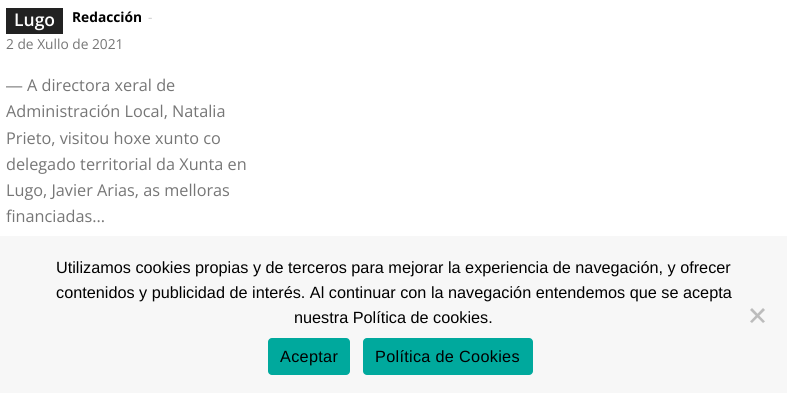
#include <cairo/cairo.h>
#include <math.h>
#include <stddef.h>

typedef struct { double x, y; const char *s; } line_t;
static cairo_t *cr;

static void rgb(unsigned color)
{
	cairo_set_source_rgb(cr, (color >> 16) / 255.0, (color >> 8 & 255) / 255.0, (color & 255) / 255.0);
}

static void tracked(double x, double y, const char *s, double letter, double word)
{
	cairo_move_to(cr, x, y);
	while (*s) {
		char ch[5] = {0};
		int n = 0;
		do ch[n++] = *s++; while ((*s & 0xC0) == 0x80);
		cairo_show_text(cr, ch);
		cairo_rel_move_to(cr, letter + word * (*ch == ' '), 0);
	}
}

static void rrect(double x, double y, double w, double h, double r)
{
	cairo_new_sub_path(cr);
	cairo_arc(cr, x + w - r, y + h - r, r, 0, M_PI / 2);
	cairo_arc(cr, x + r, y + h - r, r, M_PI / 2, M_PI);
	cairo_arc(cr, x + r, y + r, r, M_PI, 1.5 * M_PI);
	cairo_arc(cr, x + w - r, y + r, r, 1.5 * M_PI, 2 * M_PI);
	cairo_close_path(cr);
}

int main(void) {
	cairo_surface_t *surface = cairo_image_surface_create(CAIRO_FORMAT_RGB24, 787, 393);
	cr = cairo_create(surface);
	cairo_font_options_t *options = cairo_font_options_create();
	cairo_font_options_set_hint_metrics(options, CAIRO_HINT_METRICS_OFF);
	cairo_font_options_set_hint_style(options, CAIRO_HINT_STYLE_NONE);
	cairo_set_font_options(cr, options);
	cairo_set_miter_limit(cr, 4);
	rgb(0xffffff);
	cairo_paint(cr);
	rgb(0x222222);
	cairo_rectangle(cr, 6, 8, 57, 26);
	cairo_fill(cr);
	rgb(0xf7f7f7);
	cairo_rectangle(cr, 0, 236, 787, 157);
	cairo_fill(cr);
	rgb(0xbcbcbc);
	cairo_new_path(cr);
	cairo_move_to(cr, 763, 308);
	cairo_line_to(cr, 765, 310);
	cairo_line_to(cr, 752, 323);
	cairo_line_to(cr, 750, 321.5);
	cairo_close_path(cr);
	cairo_fill(cr);
	cairo_new_path(cr);
	cairo_move_to(cr, 750, 310);
	cairo_line_to(cr, 752, 308);
	cairo_line_to(cr, 765, 321.5);
	cairo_line_to(cr, 763, 323);
	cairo_close_path(cr);
	cairo_fill(cr);
	rgb(0x00a99d);
	rrect(268, 338, 82, 37, 4);
	cairo_fill(cr);
	rrect(363, 338, 170, 37, 4);
	cairo_fill(cr);
	cairo_select_font_face(cr, "Open Sans", CAIRO_FONT_SLANT_NORMAL, CAIRO_FONT_WEIGHT_BOLD);
	cairo_set_font_size(cr, 13.75);
	rgb(0x000000);
	cairo_move_to(cr, 72, 22);
	cairo_show_text(cr, "Redacción");
	cairo_select_font_face(cr, "Open Sans", CAIRO_FONT_SLANT_NORMAL, CAIRO_FONT_WEIGHT_NORMAL);
	rgb(0xcccccc);
	cairo_move_to(cr, 148, 22);
	cairo_show_text(cr, "-");
	rgb(0x767676);
	cairo_move_to(cr, 6, 49);
	cairo_show_text(cr, "2 de Xullo de 2021");
	cairo_select_font_face(cr, "Open Sans SemiBold", CAIRO_FONT_SLANT_NORMAL, CAIRO_FONT_WEIGHT_NORMAL);
	cairo_set_font_size(cr, 17.5);
	rgb(0xffffff);
	cairo_move_to(cr, 14, 26);
	cairo_show_text(cr, "Lugo");
	cairo_select_font_face(cr, "Liberation Sans", CAIRO_FONT_SLANT_NORMAL, CAIRO_FONT_WEIGHT_NORMAL);
	cairo_set_font_size(cr, 16.25);
	rgb(0x767676);
	cairo_move_to(cr, 6, 91);
	cairo_show_text(cr, "―");
	cairo_select_font_face(cr, "Open Sans", CAIRO_FONT_SLANT_NORMAL, CAIRO_FONT_WEIGHT_NORMAL);
	{
		static const line_t items[] = {
			{27, 91, "A directora xeral de"},
			{6, 117, "Administración Local, Natalia"},
			{6, 144, "Prieto, visitou hoxe xunto co"},
			{6, 170, "delegado territorial da Xunta en"},
			{6, 196, "Lugo, Javier Arias, as melloras"},
			{6, 222, "financiadas..."},
		};
		for (size_t i = 0; i < sizeof items / sizeof *items; i++) {
			cairo_move_to(cr, items[i].x, items[i].y);
			cairo_show_text(cr, items[i].s);
		}
	}
	cairo_select_font_face(cr, "Liberation Sans", CAIRO_FONT_SLANT_NORMAL, CAIRO_FONT_WEIGHT_NORMAL);
	rgb(0x000000);
	{
		static const line_t items[] = {
			{56, 273, "Utilizamos cookies propias y de terceros para mejorar la experiencia de navegación, y ofrecer"},
			{56, 298, "contenidos y publicidad de interés. Al continuar con la navegación entendemos que se acepta"},
			{294, 323, "nuestra Política de cookies."},
		};
		for (size_t i = 0; i < sizeof items / sizeof *items; i++) {
			cairo_move_to(cr, items[i].x, items[i].y);
			cairo_show_text(cr, items[i].s);
		}
	}
	tracked(280, 362, "Aceptar", 0.3, 0);
	tracked(375, 362, "Política de Cookies", 0.3, 0);
	cairo_surface_write_to_png(surface, "page.png");
	cairo_font_options_destroy(options);
	cairo_destroy(cr);
	cairo_surface_destroy(surface);
	return 0;
}
